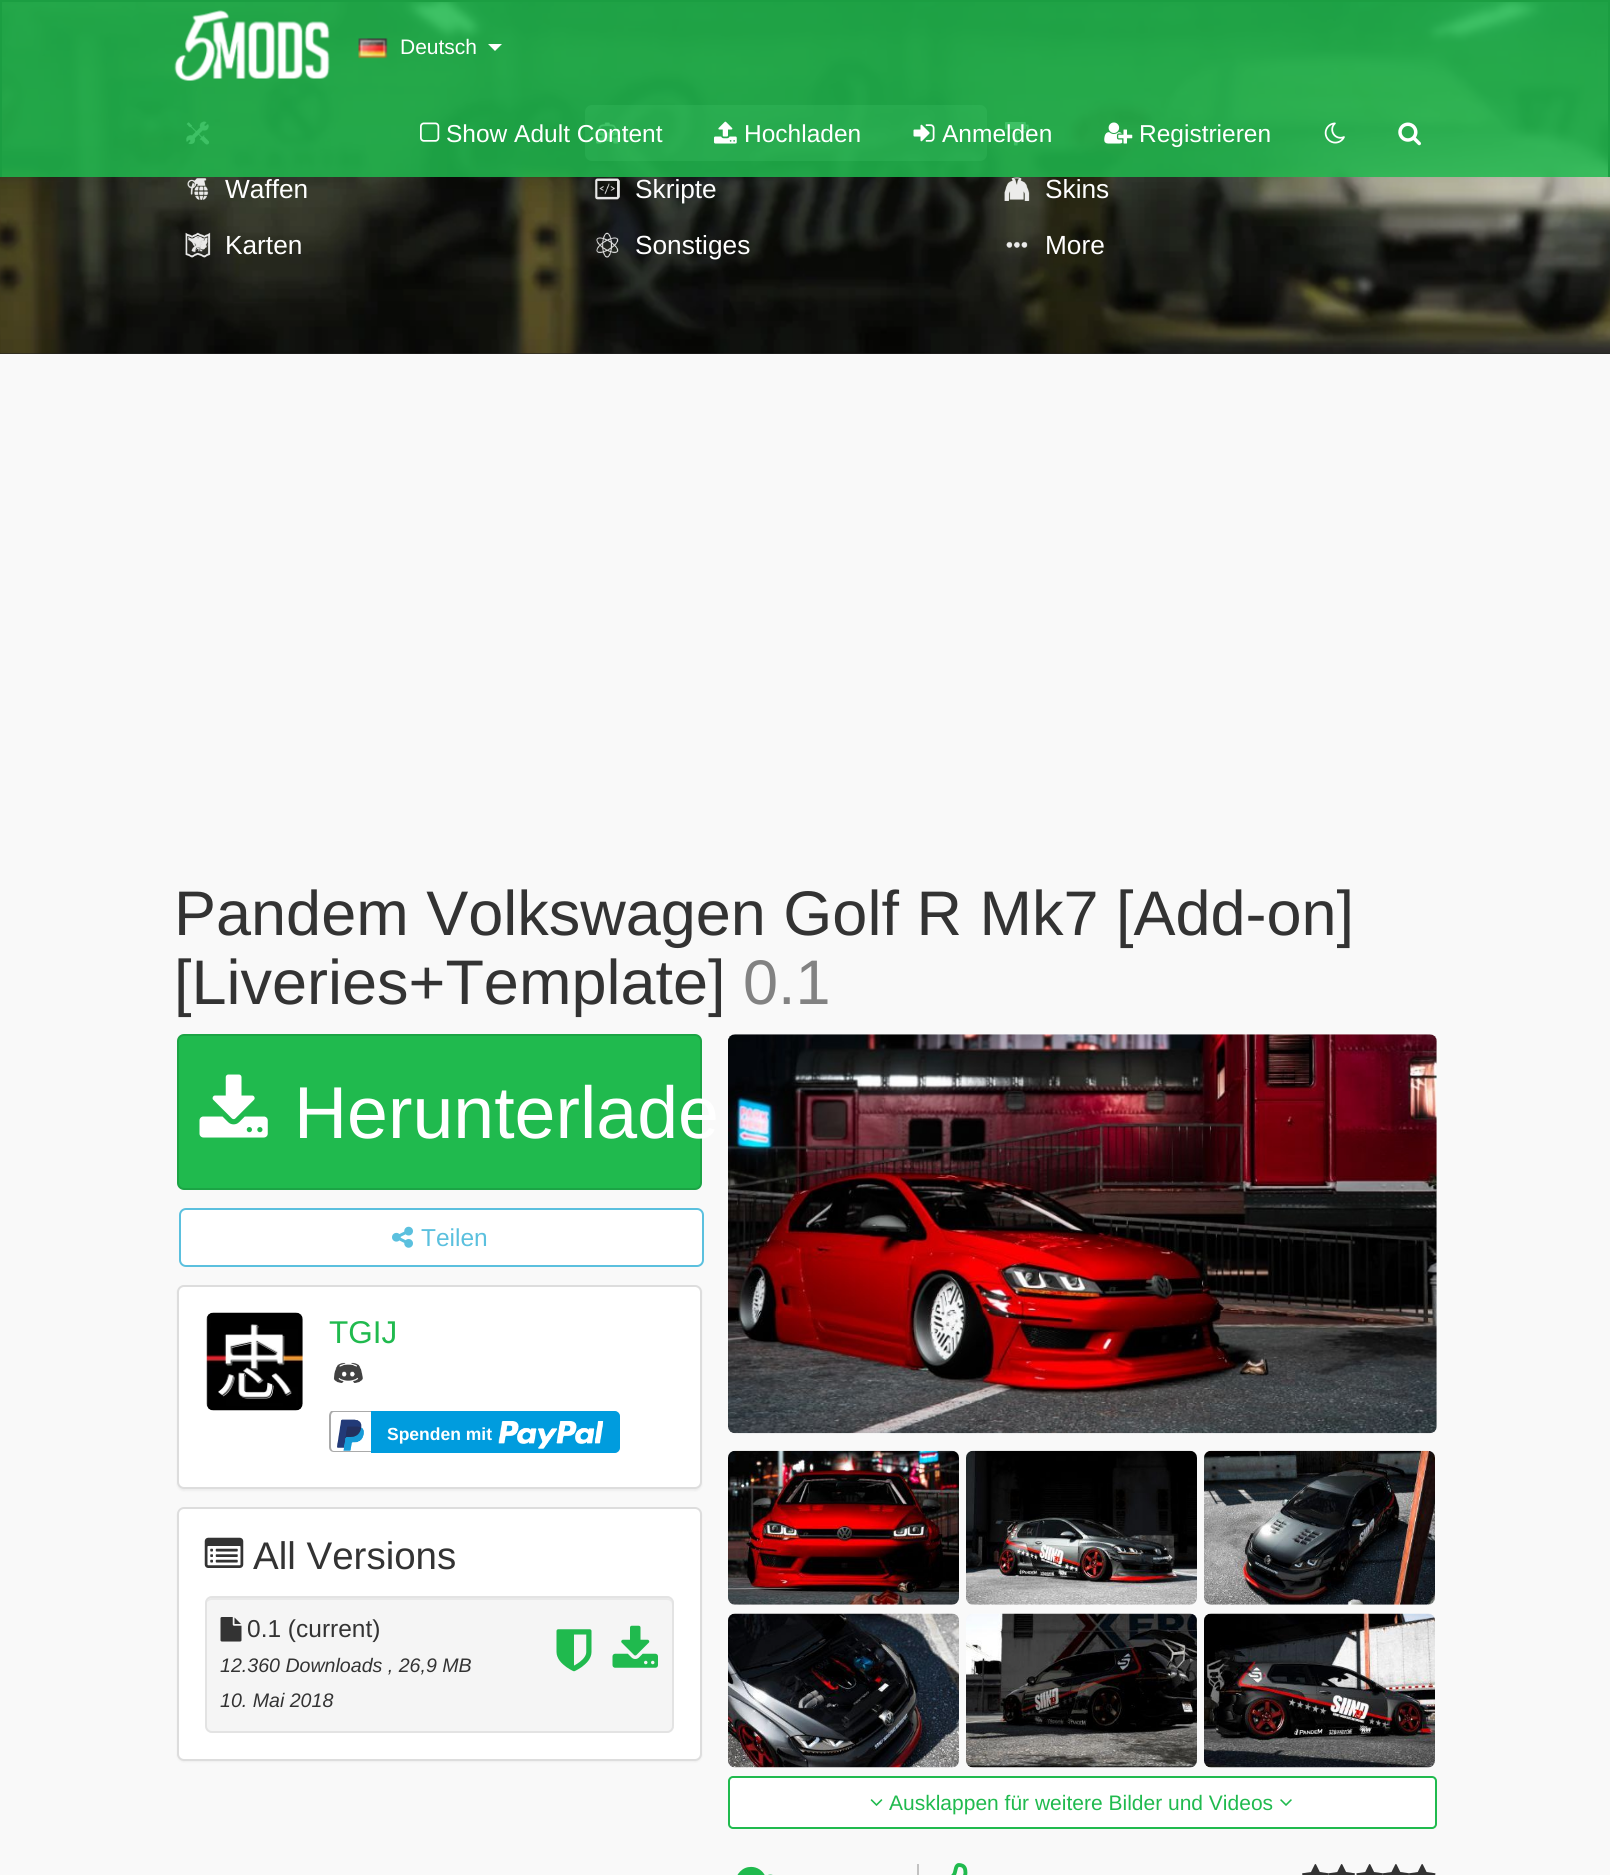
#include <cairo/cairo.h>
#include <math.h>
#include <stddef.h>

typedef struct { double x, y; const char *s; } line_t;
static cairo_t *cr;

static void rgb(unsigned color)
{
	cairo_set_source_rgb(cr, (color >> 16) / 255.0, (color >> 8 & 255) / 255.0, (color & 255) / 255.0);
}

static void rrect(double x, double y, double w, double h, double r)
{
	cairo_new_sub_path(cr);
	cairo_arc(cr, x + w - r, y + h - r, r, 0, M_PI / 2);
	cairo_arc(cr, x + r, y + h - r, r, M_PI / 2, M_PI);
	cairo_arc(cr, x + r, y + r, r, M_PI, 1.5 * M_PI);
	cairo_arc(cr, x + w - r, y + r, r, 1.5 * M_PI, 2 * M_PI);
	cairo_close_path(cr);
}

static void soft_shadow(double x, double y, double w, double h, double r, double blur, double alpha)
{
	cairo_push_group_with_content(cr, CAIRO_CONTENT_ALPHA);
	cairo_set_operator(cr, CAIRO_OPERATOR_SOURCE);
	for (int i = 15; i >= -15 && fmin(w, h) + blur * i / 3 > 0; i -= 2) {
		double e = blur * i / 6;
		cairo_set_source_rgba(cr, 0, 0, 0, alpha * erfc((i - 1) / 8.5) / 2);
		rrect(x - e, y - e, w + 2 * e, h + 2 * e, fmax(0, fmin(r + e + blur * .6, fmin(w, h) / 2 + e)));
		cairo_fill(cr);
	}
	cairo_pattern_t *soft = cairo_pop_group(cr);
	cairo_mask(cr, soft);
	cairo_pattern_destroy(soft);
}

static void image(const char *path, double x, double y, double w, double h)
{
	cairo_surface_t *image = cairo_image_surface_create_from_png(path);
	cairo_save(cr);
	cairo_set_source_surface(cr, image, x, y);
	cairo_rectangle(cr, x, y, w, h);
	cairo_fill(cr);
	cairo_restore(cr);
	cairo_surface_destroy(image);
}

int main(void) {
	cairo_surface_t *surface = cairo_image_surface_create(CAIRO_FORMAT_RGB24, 1610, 1875);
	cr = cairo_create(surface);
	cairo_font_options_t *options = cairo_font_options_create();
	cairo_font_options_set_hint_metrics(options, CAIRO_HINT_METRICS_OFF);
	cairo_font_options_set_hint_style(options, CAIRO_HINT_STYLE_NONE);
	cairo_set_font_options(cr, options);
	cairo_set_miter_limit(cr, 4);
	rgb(0xf9f9f9);
	cairo_paint(cr);
	rgb(0x222222);
	cairo_rectangle(cr, 0, 353, 1610, 1);
	cairo_fill(cr);
	image("img/9.png", 0, 2, 1610, 352);
	image("img/10.png", 186, 121, 23, 24);
	cairo_set_source_rgba(cr, 1, 1, 1, 0.25);
	rrect(585, 105, 402, 56, 7);
	cairo_fill(cr);
	image("img/11.png", 594, 122, 26, 22);
	image("img/12.png", 1005, 122, 24, 24);
	cairo_set_source_rgba(cr, 0.125, 0.729, 0.306, 0.85);
	cairo_rectangle(cr, 2, 2, 1606, 175);
	cairo_fill(cr);
	rgb(0x1b9e42);
	cairo_rectangle(cr, 0, 0, 1610, 2);
	cairo_fill(cr);
	cairo_rectangle(cr, 1608, 0, 2, 177);
	cairo_fill(cr);
	cairo_rectangle(cr, 0, 0, 2, 177);
	cairo_fill(cr);
	image("img/1.png", 174, 10, 156, 71);
	image("img/2.png", 358, 38, 30, 21);
	rgb(0xffffff);
	cairo_new_path(cr);
	cairo_move_to(cr, 488, 44);
	cairo_line_to(cr, 502, 44);
	cairo_line_to(cr, 495, 51);
	cairo_close_path(cr);
	cairo_fill(cr);
	image("img/3.png", 420, 122, 20, 20);
	image("img/4.png", 714, 121, 23, 23);
	image("img/5.png", 913, 124, 22, 18);
	image("img/6.png", 1104, 122, 29, 22);
	image("img/7.png", 1324, 122, 21, 22);
	image("img/8.png", 1398, 122, 23, 24);
	image("img/13.png", 187, 178, 22, 22);
	image("img/14.png", 594, 178, 26, 22);
	image("img/15.png", 1004, 177, 26, 24);
	image("img/16.png", 185, 232, 26, 26);
	image("img/17.png", 596, 232, 23, 26);
	image("img/18.png", 1006, 241, 22, 7);
	rgb(0x20ba4e);
	rrect(178, 1035, 523, 154, 6);
	cairo_fill_preserve(cr);
	rgb(0x1ca445);
	cairo_stroke(cr);
	image("img/19.png", 199, 1074, 69, 64);
	rgb(0xffffff);
	rrect(180, 1209, 523, 57, 6);
	cairo_fill_preserve(cr);
	rgb(0x5bc0de);
	cairo_stroke(cr);
	image("img/20.png", 392, 1226, 21, 22);
	rgb(0x000000);
	soft_shadow(177, 1286, 525, 205, 7, 1, 0.05);
	rgb(0xffffff);
	rrect(178, 1286, 523, 202, 6);
	cairo_fill_preserve(cr);
	rgb(0xdddddd);
	cairo_stroke(cr);
	image("img/21.png", 206, 1312, 97, 99);
	image("img/22.png", 333, 1362, 30, 21);
	cairo_save(cr);
	cairo_rectangle(cr, 329, 1411, 291, 42);
	cairo_clip(cr);
	rgb(0xaaaaaa);
	cairo_set_fill_rule(cr, CAIRO_FILL_RULE_EVEN_ODD);
	cairo_new_path(cr);
	cairo_move_to(cr, 334, 1410);
	cairo_line_to(cr, 371, 1410);
	cairo_line_to(cr, 371, 1452);
	cairo_line_to(cr, 334, 1452);
	cairo_curve_to(cr, 331, 1452, 329, 1450, 329, 1447);
	cairo_line_to(cr, 329, 1416);
	cairo_curve_to(cr, 329, 1413, 331, 1410, 334, 1410);
	cairo_close_path(cr);
	cairo_move_to(cr, 334, 1412);
	cairo_line_to(cr, 371, 1412);
	cairo_line_to(cr, 371, 1451);
	cairo_line_to(cr, 334, 1451);
	cairo_curve_to(cr, 332, 1451, 331, 1449, 331, 1447);
	cairo_line_to(cr, 331, 1416);
	cairo_curve_to(cr, 331, 1414, 332, 1412, 334, 1412);
	cairo_close_path(cr);
	cairo_fill(cr);
	cairo_restore(cr);
	image("img/23.png", 337, 1419, 27, 32);
	rgb(0x009cde);
	cairo_new_path(cr);
	cairo_move_to(cr, 372, 1412);
	cairo_line_to(cr, 615, 1412);
	cairo_curve_to(cr, 617, 1412, 619, 1414, 619, 1416);
	cairo_line_to(cr, 619, 1448);
	cairo_curve_to(cr, 619, 1450, 617, 1452, 615, 1452);
	cairo_line_to(cr, 372, 1452);
	cairo_close_path(cr);
	cairo_fill_preserve(cr);
	cairo_stroke(cr);
	image("img/24.png", 498, 1421, 106, 28);
	rgb(0x000000);
	soft_shadow(177, 1509, 525, 253, 7, 1, 0.05);
	rgb(0xffffff);
	rrect(178, 1508, 523, 252, 6);
	cairo_fill_preserve(cr);
	rgb(0xdddddd);
	cairo_stroke(cr);
	image("img/25.png", 204, 1537, 40, 31);
	rgb(0xf5f5f5);
	rrect(205, 1596, 469, 137, 7);
	cairo_fill(cr);
	rgb(0xe9e9e9);
	cairo_new_path(cr);
	cairo_move_to(cr, 212, 1600);
	cairo_line_to(cr, 667, 1600);
	cairo_curve_to(cr, 670, 1600, 672, 1602, 672, 1605);
	cairo_line_to(cr, 672, 1603);
	cairo_curve_to(cr, 672, 1600, 670, 1598, 667, 1598);
	cairo_line_to(cr, 212, 1598);
	cairo_curve_to(cr, 210, 1598, 207, 1600, 207, 1602);
	cairo_curve_to(cr, 208, 1601, 210, 1600, 212, 1600);
	cairo_close_path(cr);
	cairo_fill(cr);
	rrect(206, 1597, 467, 135, 6);
	rgb(0xe3e3e3);
	cairo_stroke(cr);
	image("img/26.png", 220, 1617, 22, 25);
	image("img/27.png", 556, 1629, 36, 43);
	image("img/28.png", 612, 1625, 46, 43);
	image("img/29.png", 728, 1034, 709, 400);
	image("img/30.png", 728, 1450, 231, 155);
	image("img/31.png", 966, 1450, 231, 155);
	image("img/32.png", 1204, 1450, 231, 155);
	image("img/33.png", 728, 1613, 231, 155);
	image("img/34.png", 966, 1613, 231, 155);
	image("img/35.png", 1204, 1613, 231, 155);
	rgb(0xffffff);
	rrect(729, 1777, 707, 51, 4);
	cairo_fill_preserve(cr);
	rgb(0x20ba4e);
	cairo_stroke(cr);
	image("img/36.png", 870, 1799, 13, 7);
	image("img/37.png", 1280, 1799, 12, 7);
	image("img/38.png", 737, 1866, 36, 9);
	rgb(0xc2c2c2);
	cairo_rectangle(cr, 917, 1864, 2, 11);
	cairo_fill(cr);
	image("img/39.png", 951, 1863, 17, 12);
	image("img/40.png", 1302, 1864, 27, 11);
	image("img/41.png", 1328, 1864, 27, 11);
	image("img/42.png", 1356, 1864, 27, 11);
	image("img/43.png", 1382, 1864, 28, 11);
	image("img/44.png", 1408, 1864, 28, 11);
	cairo_select_font_face(cr, "Liberation Sans", CAIRO_FONT_SLANT_NORMAL, CAIRO_FONT_WEIGHT_NORMAL);
	cairo_set_font_size(cr, 21);
	rgb(0xffffff);
	cairo_move_to(cr, 400, 54);
	cairo_show_text(cr, "Deutsch");
	cairo_set_font_size(cr, 24.5);
	{
		static const line_t items[] = {
			{446, 142, "Show Adult Content"},
			{744, 142, "Hochladen"},
			{942, 142, "Anmelden"},
			{1139, 142, "Registrieren"},
		};
		for (size_t i = 0; i < sizeof items / sizeof *items; i++) {
			cairo_move_to(cr, items[i].x, items[i].y);
			cairo_show_text(cr, items[i].s);
		}
	}
	cairo_set_font_size(cr, 26.25);
	{
		static const line_t items[] = {
			{225, 198, "Waffen"},
			{635, 198, "Skripte"},
			{1045, 198, "Skins"},
			{225, 254, "Karten"},
			{635, 254, "Sonstiges"},
			{1045, 254, "More"},
		};
		for (size_t i = 0; i < sizeof items / sizeof *items; i++) {
			cairo_move_to(cr, items[i].x, items[i].y);
			cairo_show_text(cr, items[i].s);
		}
	}
	cairo_set_font_size(cr, 63);
	rgb(0x333333);
	cairo_move_to(cr, 174, 935);
	cairo_show_text(cr, "Pandem Volkswagen Golf R Mk7 [Add-on]");
	cairo_move_to(cr, 174, 1004);
	cairo_show_text(cr, "[Liveries+Template]");
	rgb(0x828282);
	cairo_move_to(cr, 743, 1004);
	cairo_show_text(cr, "0.1");
	cairo_set_font_size(cr, 73.5);
	rgb(0xffffff);
	cairo_move_to(cr, 294, 1138);
	cairo_show_text(cr, "Herunterlade");
	cairo_set_font_size(cr, 24.5);
	rgb(0x5bc0de);
	cairo_move_to(cr, 421, 1246);
	cairo_show_text(cr, "Teilen");
	cairo_set_font_size(cr, 31.5);
	rgb(0x20ba4e);
	cairo_move_to(cr, 329, 1343);
	cairo_show_text(cr, "TGIJ");
	cairo_select_font_face(cr, "Liberation Sans", CAIRO_FONT_SLANT_NORMAL, CAIRO_FONT_WEIGHT_BOLD);
	cairo_set_font_size(cr, 17.5);
	rgb(0xffffff);
	cairo_move_to(cr, 387, 1440);
	cairo_show_text(cr, "Spenden mit");
	cairo_select_font_face(cr, "Liberation Sans", CAIRO_FONT_SLANT_NORMAL, CAIRO_FONT_WEIGHT_NORMAL);
	cairo_set_font_size(cr, 38.5);
	rgb(0x333333);
	cairo_move_to(cr, 253, 1569);
	cairo_show_text(cr, "All Versions");
	cairo_set_font_size(cr, 24.5);
	cairo_move_to(cr, 247, 1637);
	cairo_show_text(cr, "0.1 (current)");
	cairo_select_font_face(cr, "Liberation Sans", CAIRO_FONT_SLANT_ITALIC, CAIRO_FONT_WEIGHT_NORMAL);
	cairo_set_font_size(cr, 19.6);
	cairo_move_to(cr, 220, 1672);
	cairo_show_text(cr, "12.360 Downloads , 26,9 MB");
	cairo_move_to(cr, 220, 1707);
	cairo_show_text(cr, "10. Mai 2018");
	cairo_select_font_face(cr, "Liberation Sans", CAIRO_FONT_SLANT_NORMAL, CAIRO_FONT_WEIGHT_NORMAL);
	cairo_set_font_size(cr, 21);
	rgb(0x20ba4e);
	cairo_move_to(cr, 889, 1810);
	cairo_show_text(cr, "Ausklappen für weitere Bilder und Videos");
	cairo_surface_write_to_png(surface, "page.png");
	cairo_font_options_destroy(options);
	cairo_destroy(cr);
	cairo_surface_destroy(surface);
	return 0;
}
